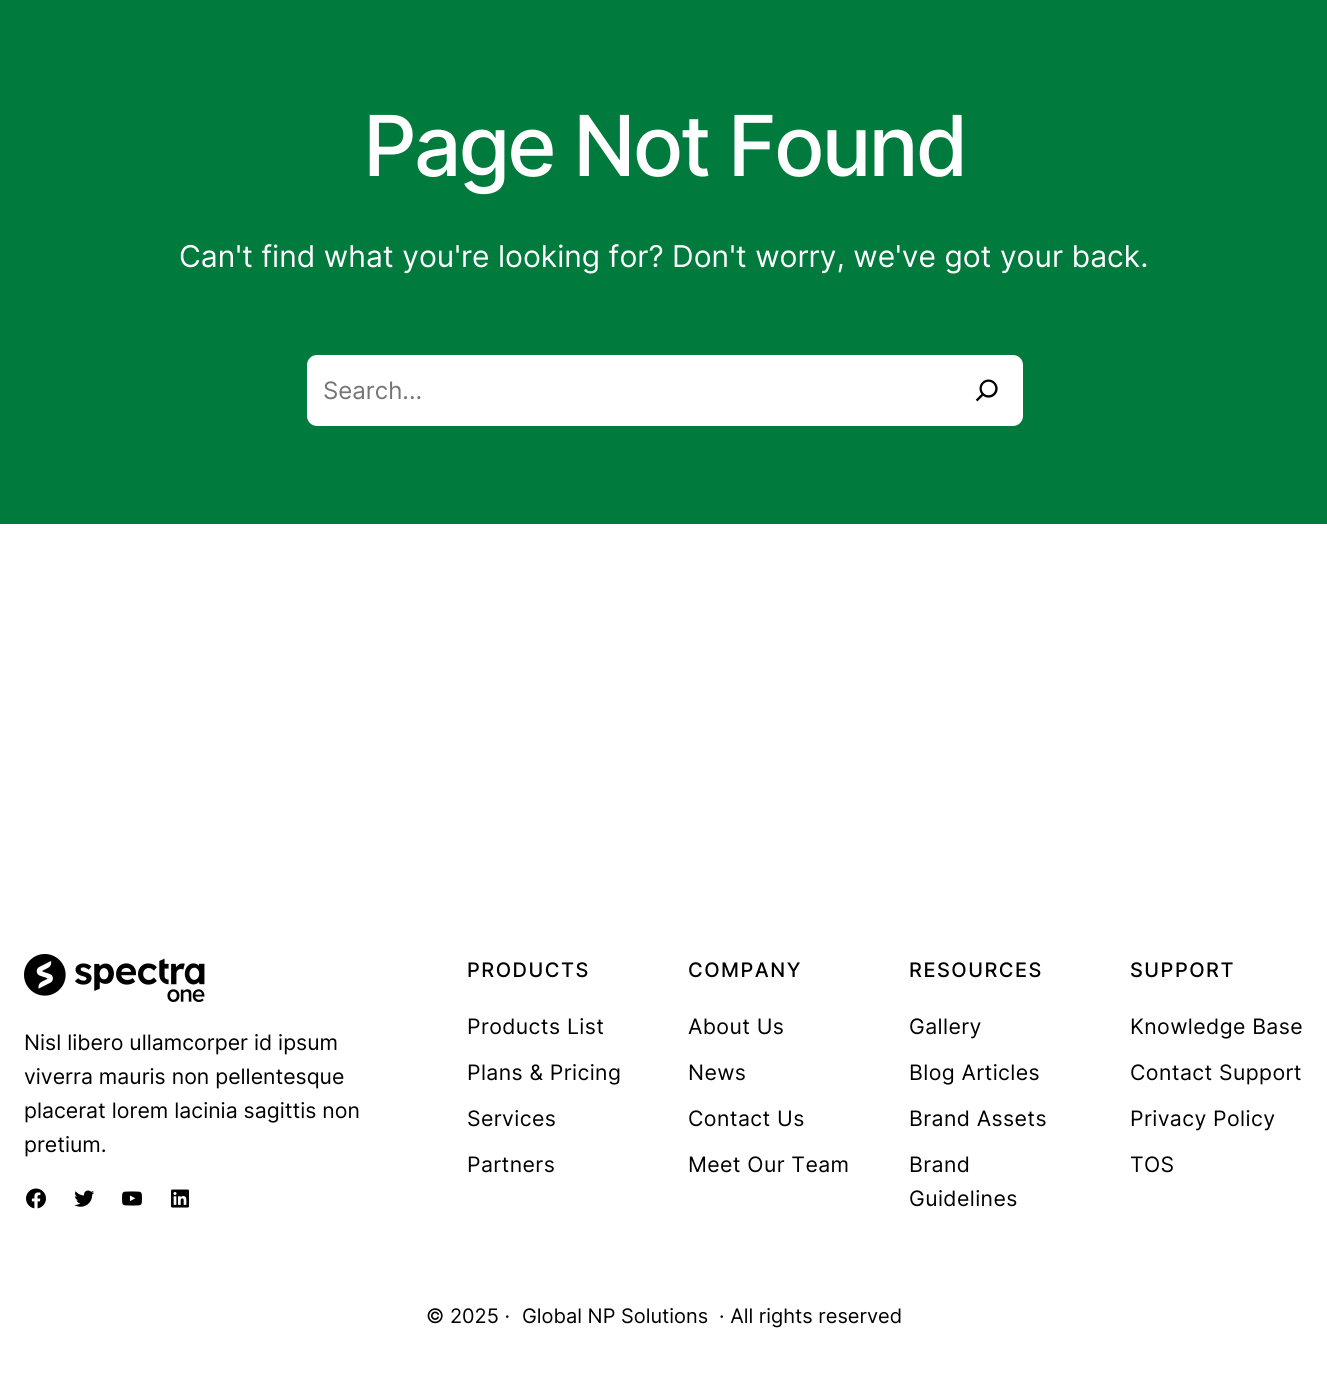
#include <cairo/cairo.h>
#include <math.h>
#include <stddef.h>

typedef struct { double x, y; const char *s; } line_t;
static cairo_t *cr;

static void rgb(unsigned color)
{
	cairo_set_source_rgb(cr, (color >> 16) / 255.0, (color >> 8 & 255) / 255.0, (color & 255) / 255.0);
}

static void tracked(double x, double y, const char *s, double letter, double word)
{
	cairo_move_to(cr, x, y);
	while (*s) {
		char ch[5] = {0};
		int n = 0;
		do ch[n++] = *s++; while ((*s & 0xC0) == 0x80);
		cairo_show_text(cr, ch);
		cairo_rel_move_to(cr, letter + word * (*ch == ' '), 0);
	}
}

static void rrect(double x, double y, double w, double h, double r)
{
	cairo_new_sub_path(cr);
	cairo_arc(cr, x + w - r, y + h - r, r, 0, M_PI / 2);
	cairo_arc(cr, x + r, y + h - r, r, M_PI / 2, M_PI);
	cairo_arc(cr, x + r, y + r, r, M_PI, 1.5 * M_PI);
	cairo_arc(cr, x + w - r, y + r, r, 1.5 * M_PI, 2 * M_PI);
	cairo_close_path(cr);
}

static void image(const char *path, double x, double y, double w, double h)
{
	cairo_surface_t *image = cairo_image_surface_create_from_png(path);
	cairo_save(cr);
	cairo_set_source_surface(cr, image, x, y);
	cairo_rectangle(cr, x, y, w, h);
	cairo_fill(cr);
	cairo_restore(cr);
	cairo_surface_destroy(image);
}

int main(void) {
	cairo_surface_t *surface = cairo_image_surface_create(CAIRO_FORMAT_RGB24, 1327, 1379);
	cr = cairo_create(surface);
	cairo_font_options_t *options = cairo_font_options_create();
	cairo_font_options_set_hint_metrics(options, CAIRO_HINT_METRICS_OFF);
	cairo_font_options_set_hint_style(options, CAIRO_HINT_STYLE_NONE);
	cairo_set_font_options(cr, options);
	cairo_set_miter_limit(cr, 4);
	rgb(0xffffff);
	cairo_paint(cr);
	rgb(0x007a3d);
	cairo_rectangle(cr, 0, 0, 1327, 524);
	cairo_fill(cr);
	rgb(0xffffff);
	rrect(306, 354, 718, 73, 11);
	cairo_fill_preserve(cr);
	rgb(0x007a3d);
	cairo_stroke(cr);
	image("img/1.png", 975, 379, 23, 23);
	image("img/2.png", 24, 954, 181, 48);
	image("img/3.png", 26, 1188, 20, 21);
	image("img/4.png", 74, 1190, 21, 17);
	image("img/5.png", 122, 1191, 20, 15);
	image("img/6.png", 171, 1189, 18, 19);
	cairo_select_font_face(cr, "Inter Medium", CAIRO_FONT_SLANT_NORMAL, CAIRO_FONT_WEIGHT_NORMAL);
	cairo_set_font_size(cr, 84);
	rgb(0xffffff);
	tracked(363, 176, "Page Not Found", -3, 0);
	cairo_select_font_face(cr, "Inter", CAIRO_FONT_SLANT_NORMAL, CAIRO_FONT_WEIGHT_NORMAL);
	cairo_set_font_size(cr, 30);
	cairo_move_to(cr, 179, 267);
	cairo_show_text(cr, "Can't find what you're looking for? Don't worry, we've got your back.");
	cairo_set_font_size(cr, 24);
	rgb(0x757575);
	cairo_move_to(cr, 323, 399);
	cairo_show_text(cr, "Search...");
	cairo_set_font_size(cr, 21.25);
	rgb(0x000000);
	{
		static const line_t items[] = {
			{24, 1050, "Nisl libero ullamcorper id ipsum"},
			{24, 1084, "viverra mauris non pellentesque"},
			{24, 1118, "placerat lorem lacinia sagittis non"},
			{24, 1152, "pretium."},
		};
		for (size_t i = 0; i < sizeof items / sizeof *items; i++) {
			cairo_move_to(cr, items[i].x, items[i].y);
			cairo_show_text(cr, items[i].s);
		}
	}
	cairo_select_font_face(cr, "Inter Medium", CAIRO_FONT_SLANT_NORMAL, CAIRO_FONT_WEIGHT_NORMAL);
	cairo_set_font_size(cr, 20);
	tracked(467, 977, "PRODUCTS", 1.5, 0);
	cairo_select_font_face(cr, "Inter", CAIRO_FONT_SLANT_NORMAL, CAIRO_FONT_WEIGHT_NORMAL);
	cairo_set_font_size(cr, 21.25);
	{
		static const line_t items[] = {
			{467, 1034, "Products List"},
			{467, 1080, "Plans & Pricing"},
			{467, 1126, "Services"},
			{467, 1172, "Partners"},
		};
		for (size_t i = 0; i < sizeof items / sizeof *items; i++) {
			tracked(items[i].x, items[i].y, items[i].s, 0.4, 0);
		}
	}
	cairo_select_font_face(cr, "Inter Medium", CAIRO_FONT_SLANT_NORMAL, CAIRO_FONT_WEIGHT_NORMAL);
	cairo_set_font_size(cr, 20);
	tracked(688, 977, "COMPANY", 1.5, 0);
	cairo_select_font_face(cr, "Inter", CAIRO_FONT_SLANT_NORMAL, CAIRO_FONT_WEIGHT_NORMAL);
	cairo_set_font_size(cr, 21.25);
	{
		static const line_t items[] = {
			{688, 1034, "About Us"},
			{688, 1080, "News"},
			{688, 1126, "Contact Us"},
			{688, 1172, "Meet Our Team"},
		};
		for (size_t i = 0; i < sizeof items / sizeof *items; i++) {
			tracked(items[i].x, items[i].y, items[i].s, 0.4, 0);
		}
	}
	cairo_select_font_face(cr, "Inter Medium", CAIRO_FONT_SLANT_NORMAL, CAIRO_FONT_WEIGHT_NORMAL);
	cairo_set_font_size(cr, 20);
	tracked(909, 977, "RESOURCES", 1.5, 0);
	cairo_select_font_face(cr, "Inter", CAIRO_FONT_SLANT_NORMAL, CAIRO_FONT_WEIGHT_NORMAL);
	cairo_set_font_size(cr, 21.25);
	{
		static const line_t items[] = {
			{909, 1034, "Gallery"},
			{909, 1080, "Blog Articles"},
			{909, 1126, "Brand Assets"},
			{909, 1172, "Brand"},
			{909, 1206, "Guidelines"},
		};
		for (size_t i = 0; i < sizeof items / sizeof *items; i++) {
			tracked(items[i].x, items[i].y, items[i].s, 0.4, 0);
		}
	}
	cairo_select_font_face(cr, "Inter Medium", CAIRO_FONT_SLANT_NORMAL, CAIRO_FONT_WEIGHT_NORMAL);
	cairo_set_font_size(cr, 20);
	tracked(1130, 977, "SUPPORT", 1.5, 0);
	cairo_select_font_face(cr, "Inter", CAIRO_FONT_SLANT_NORMAL, CAIRO_FONT_WEIGHT_NORMAL);
	cairo_set_font_size(cr, 21.25);
	{
		static const line_t items[] = {
			{1130, 1034, "Knowledge Base"},
			{1130, 1080, "Contact Support"},
			{1130, 1126, "Privacy Policy"},
			{1130, 1172, "TOS"},
		};
		for (size_t i = 0; i < sizeof items / sizeof *items; i++) {
			tracked(items[i].x, items[i].y, items[i].s, 0.4, 0);
		}
	}
	cairo_set_font_size(cr, 20);
	{
		static const line_t items[] = {
			{426, 1323, "© 2025 ·"},
			{522, 1323, "Global NP Solutions"},
			{719, 1323, "· All rights reserved"},
		};
		for (size_t i = 0; i < sizeof items / sizeof *items; i++) {
			cairo_move_to(cr, items[i].x, items[i].y);
			cairo_show_text(cr, items[i].s);
		}
	}
	cairo_surface_write_to_png(surface, "page.png");
	cairo_font_options_destroy(options);
	cairo_destroy(cr);
	cairo_surface_destroy(surface);
	return 0;
}
